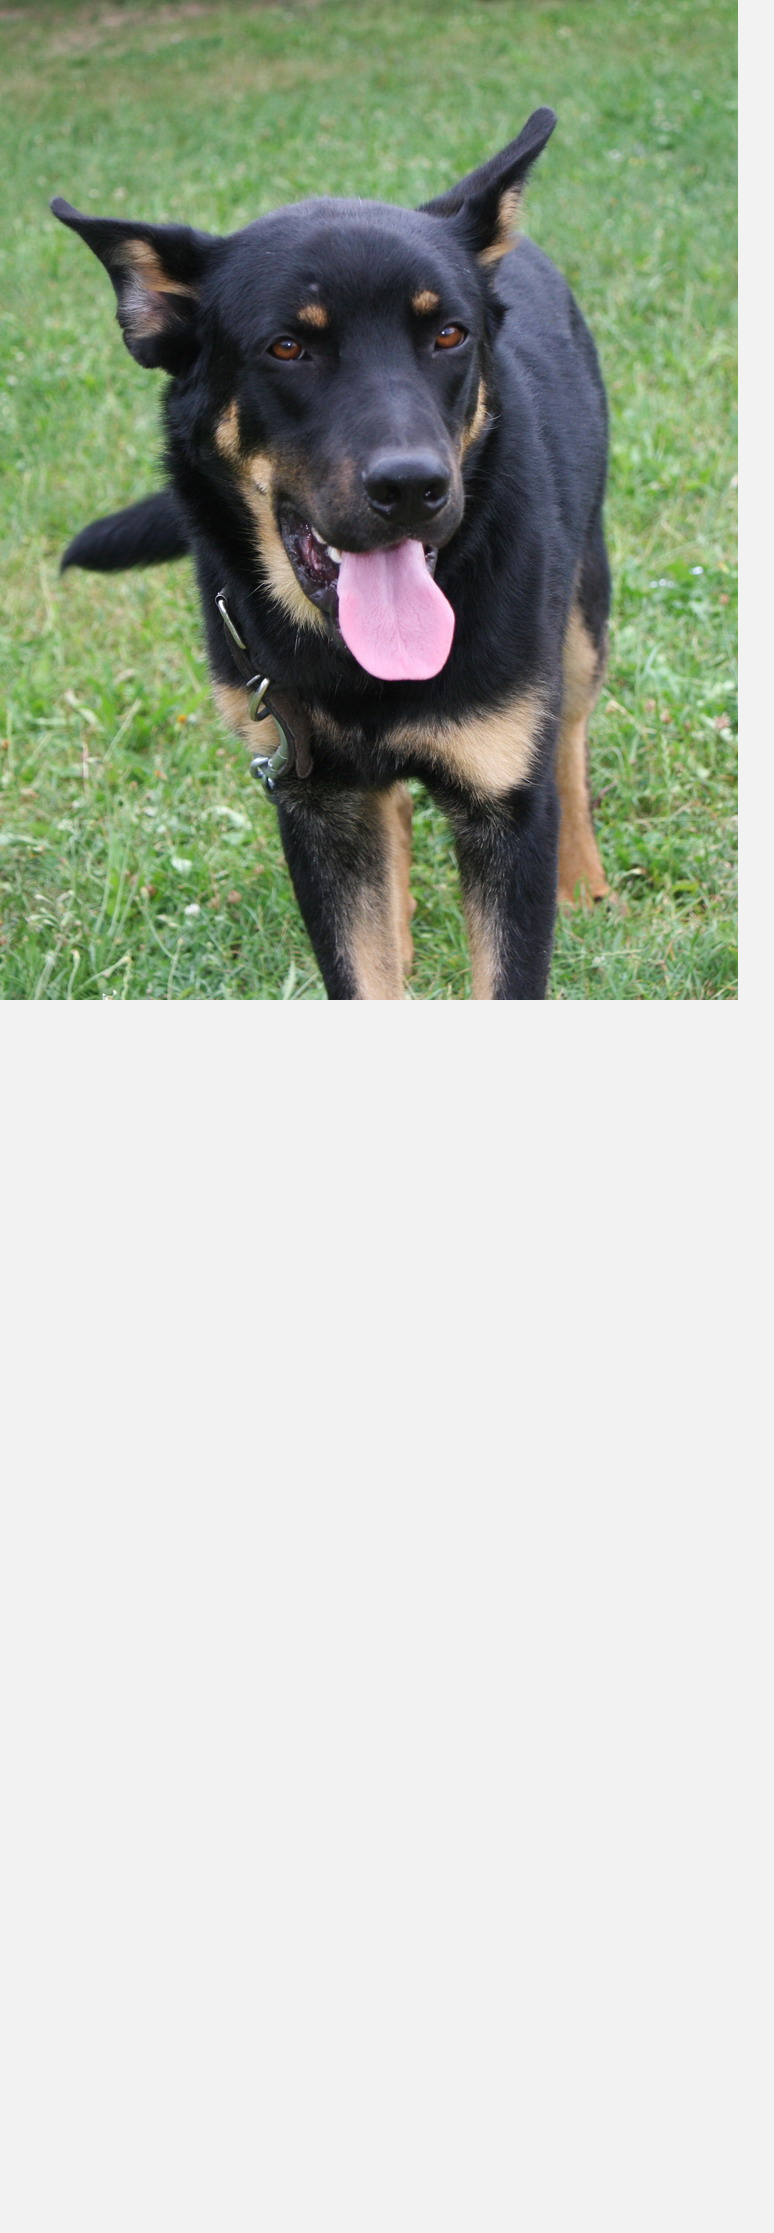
#include <cairo/cairo.h>
#include <math.h>
#include <stddef.h>

static cairo_t *cr;

static void rgb(unsigned color)
{
	cairo_set_source_rgb(cr, (color >> 16) / 255.0, (color >> 8 & 255) / 255.0, (color & 255) / 255.0);
}

static void image(const char *path, double x, double y, double w, double h)
{
	cairo_surface_t *image = cairo_image_surface_create_from_png(path);
	cairo_save(cr);
	cairo_set_source_surface(cr, image, x, y);
	cairo_rectangle(cr, x, y, w, h);
	cairo_fill(cr);
	cairo_restore(cr);
	cairo_surface_destroy(image);
}

int main(void) {
	cairo_surface_t *surface = cairo_image_surface_create(CAIRO_FORMAT_RGB24, 774, 2233);
	cr = cairo_create(surface);
	cairo_font_options_t *options = cairo_font_options_create();
	cairo_font_options_set_hint_metrics(options, CAIRO_HINT_METRICS_OFF);
	cairo_font_options_set_hint_style(options, CAIRO_HINT_STYLE_NONE);
	cairo_set_font_options(cr, options);
	cairo_set_miter_limit(cr, 4);
	rgb(0xf2f2f2);
	cairo_paint(cr);
	image("img/1.png", 0, 0, 738, 1000);
	cairo_surface_write_to_png(surface, "page.png");
	cairo_font_options_destroy(options);
	cairo_destroy(cr);
	cairo_surface_destroy(surface);
	return 0;
}
